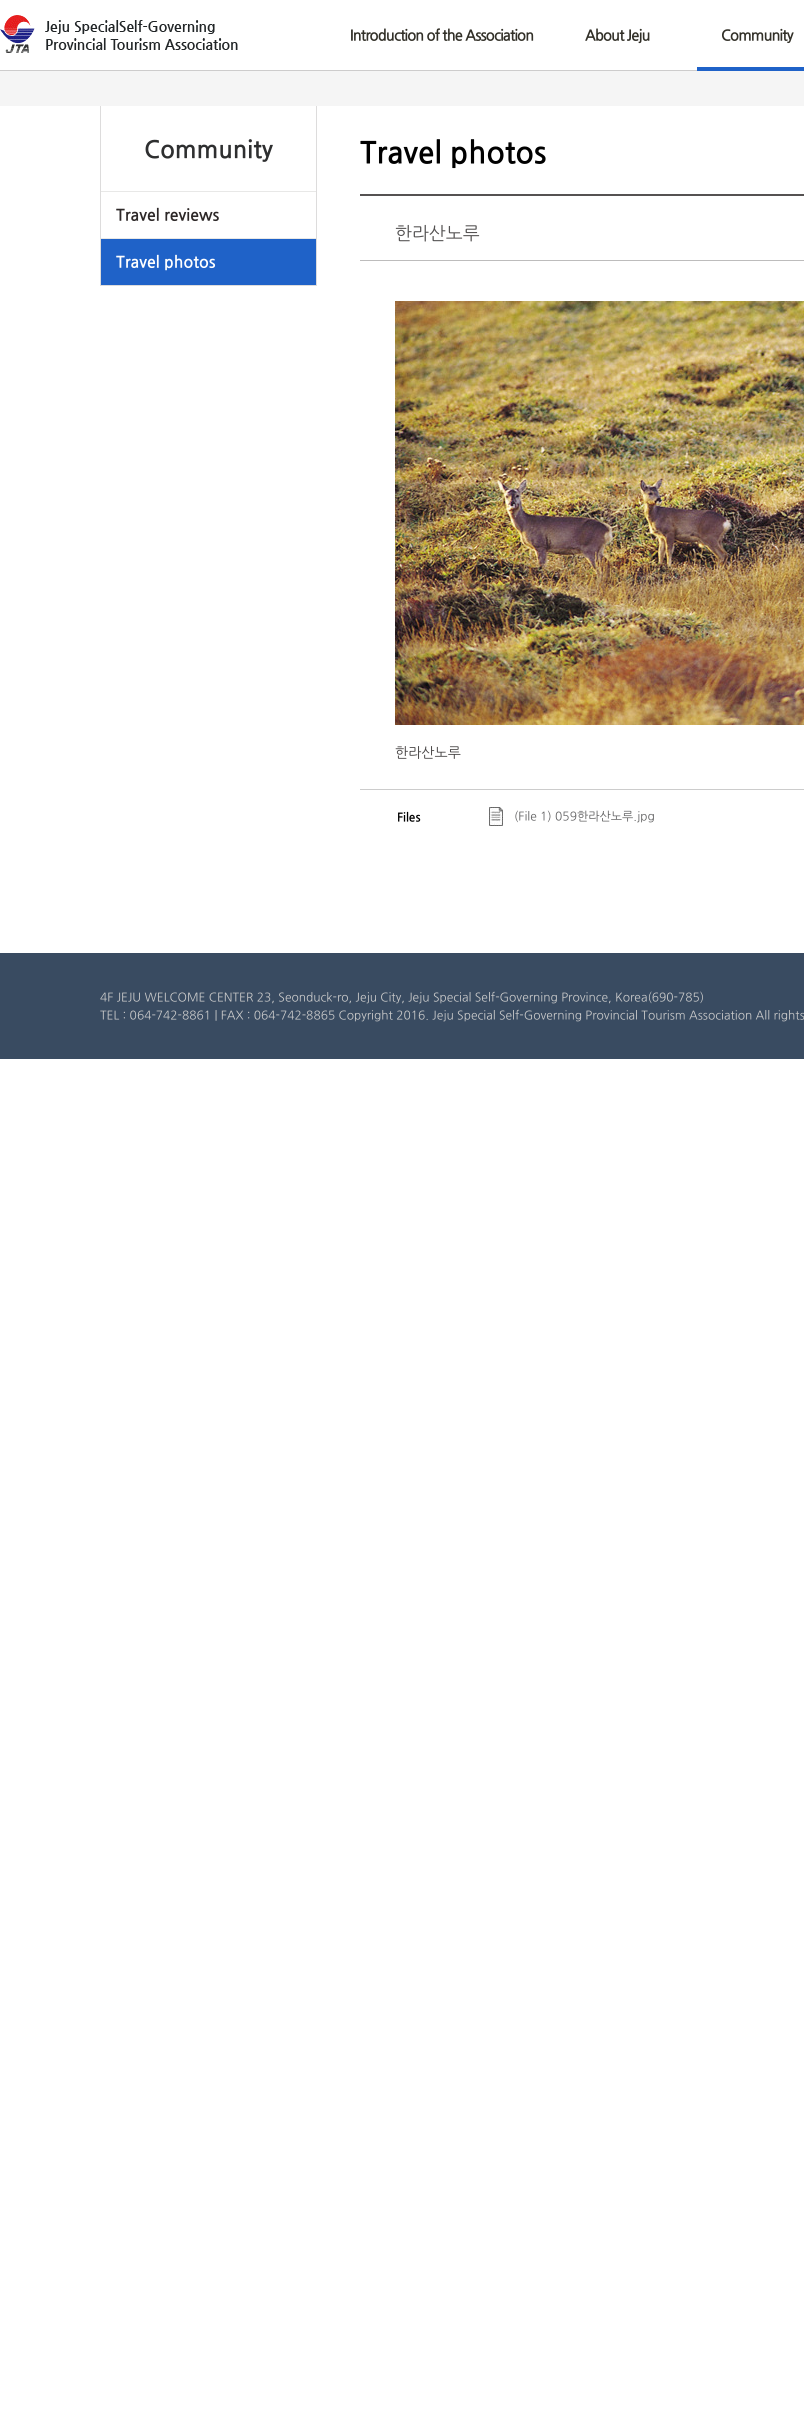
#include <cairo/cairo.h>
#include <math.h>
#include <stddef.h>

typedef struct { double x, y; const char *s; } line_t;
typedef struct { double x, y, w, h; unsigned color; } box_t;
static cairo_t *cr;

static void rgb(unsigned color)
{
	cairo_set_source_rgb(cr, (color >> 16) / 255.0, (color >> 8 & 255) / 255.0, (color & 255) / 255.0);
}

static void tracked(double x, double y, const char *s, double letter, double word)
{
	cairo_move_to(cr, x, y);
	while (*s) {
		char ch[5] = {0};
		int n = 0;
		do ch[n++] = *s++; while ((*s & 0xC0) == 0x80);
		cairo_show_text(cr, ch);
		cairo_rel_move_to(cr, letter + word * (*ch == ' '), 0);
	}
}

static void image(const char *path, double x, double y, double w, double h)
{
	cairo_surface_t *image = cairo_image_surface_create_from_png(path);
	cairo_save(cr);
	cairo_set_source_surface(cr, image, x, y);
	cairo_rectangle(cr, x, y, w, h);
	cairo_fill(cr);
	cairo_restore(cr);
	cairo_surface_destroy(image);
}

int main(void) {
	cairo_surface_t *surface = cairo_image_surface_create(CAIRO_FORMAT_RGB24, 804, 2424);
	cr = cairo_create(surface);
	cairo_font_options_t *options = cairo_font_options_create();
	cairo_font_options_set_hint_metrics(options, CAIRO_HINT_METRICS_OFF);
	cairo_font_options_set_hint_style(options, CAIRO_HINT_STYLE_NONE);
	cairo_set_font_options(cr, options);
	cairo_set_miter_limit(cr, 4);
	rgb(0xffffff);
	cairo_paint(cr);
	rgb(0xcdcccc);
	cairo_rectangle(cr, 0, 70, 697, 1);
	cairo_fill(cr);
	image("img/1.png", 0, 15, 238, 38);
	{
		static const box_t items[] = {
			{697, 67, 107, 4, 0x1f62c8},
			{0, 71, 804, 35, 0xf5f5f5},
			{316, 106, 1, 180, 0xdddcdc},
			{100, 285, 217, 1, 0xdddcdc},
			{100, 106, 1, 180, 0xdddcdc},
			{101, 191, 215, 1, 0xe8e8e7},
			{101, 238, 215, 1, 0xe8e8e7},
			{101, 239, 215, 46, 0x1f62c8},
			{360, 194, 444, 2, 0x555252},
			{360, 260, 444, 1, 0xbdbcbc},
		};
		for (size_t i = 0; i < sizeof items / sizeof *items; i++) {
			rgb(items[i].color);
			cairo_rectangle(cr, items[i].x, items[i].y, items[i].w, items[i].h);
			cairo_fill(cr);
		}
	}
	image("img/2.png", 395, 301, 409, 424);
	rgb(0xcccccc);
	cairo_rectangle(cr, 360, 789, 444, 1);
	cairo_fill(cr);
	image("img/3.png", 489, 807, 14, 19);
	rgb(0x394b61);
	cairo_rectangle(cr, 0, 953, 804, 106);
	cairo_fill(cr);
	cairo_select_font_face(cr, "NanumGothic", CAIRO_FONT_SLANT_NORMAL, CAIRO_FONT_WEIGHT_BOLD);
	cairo_set_font_size(cr, 15);
	rgb(0x323028);
	{
		static const line_t items[] = {
			{350, 40, "Introduction of the Association"},
			{585, 40, "About Jeju"},
			{721, 40, "Community"},
		};
		for (size_t i = 0; i < sizeof items / sizeof *items; i++) {
			tracked(items[i].x, items[i].y, items[i].s, -1, 0);
		}
	}
	cairo_set_font_size(cr, 24);
	rgb(0x2e2f30);
	cairo_move_to(cr, 144, 157);
	cairo_show_text(cr, "Community");
	cairo_set_font_size(cr, 16);
	rgb(0x2d2828);
	cairo_move_to(cr, 116, 220);
	cairo_show_text(cr, "Travel reviews");
	rgb(0xffffff);
	cairo_move_to(cr, 116, 267);
	cairo_show_text(cr, "Travel photos");
	cairo_set_font_size(cr, 30);
	rgb(0x000000);
	cairo_move_to(cr, 360, 162);
	cairo_show_text(cr, "Travel photos");
	cairo_select_font_face(cr, "NanumGothic", CAIRO_FONT_SLANT_NORMAL, CAIRO_FONT_WEIGHT_NORMAL);
	cairo_set_font_size(cr, 18);
	rgb(0x545252);
	cairo_move_to(cr, 395, 239);
	cairo_show_text(cr, "한라산노루");
	cairo_set_font_size(cr, 14);
	rgb(0x444141);
	cairo_move_to(cr, 395, 757);
	cairo_show_text(cr, "한라산노루");
	cairo_select_font_face(cr, "NanumGothic", CAIRO_FONT_SLANT_NORMAL, CAIRO_FONT_WEIGHT_BOLD);
	cairo_set_font_size(cr, 12);
	rgb(0x000000);
	cairo_move_to(cr, 397, 821);
	cairo_show_text(cr, "Files");
	cairo_select_font_face(cr, "NanumGothic", CAIRO_FONT_SLANT_NORMAL, CAIRO_FONT_WEIGHT_NORMAL);
	rgb(0x5f5f60);
	cairo_move_to(cr, 514, 820);
	cairo_show_text(cr, "(File 1) 059한라산노루.jpg");
	rgb(0xcbcbcb);
	cairo_move_to(cr, 100, 1001);
	cairo_show_text(cr, "4F JEJU WELCOME CENTER 23, Seonduck-ro, Jeju City, Jeju Special Self-Governing Province, Korea(690-785)");
	cairo_move_to(cr, 100, 1019);
	cairo_show_text(cr, "TEL : 064-742-8861 | FAX : 064-742-8865 Copyright 2016. Jeju Special Self-Governing Provincial Tourism Association All rights");
	cairo_surface_write_to_png(surface, "page.png");
	cairo_font_options_destroy(options);
	cairo_destroy(cr);
	cairo_surface_destroy(surface);
	return 0;
}
